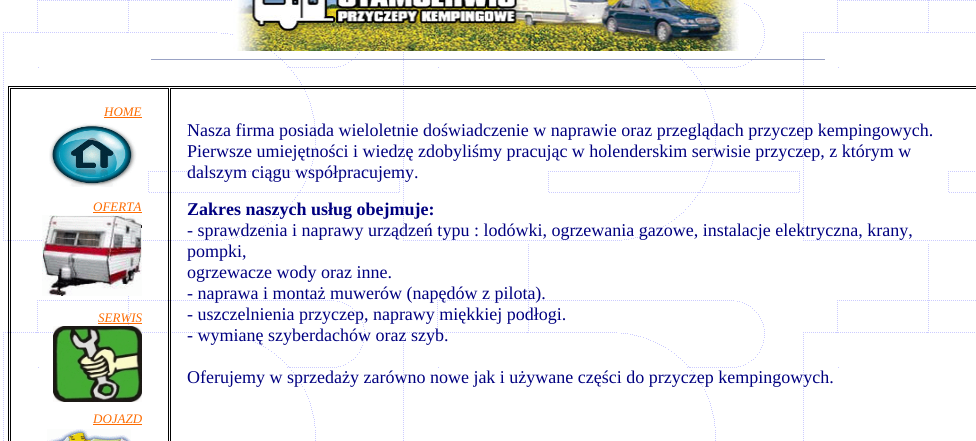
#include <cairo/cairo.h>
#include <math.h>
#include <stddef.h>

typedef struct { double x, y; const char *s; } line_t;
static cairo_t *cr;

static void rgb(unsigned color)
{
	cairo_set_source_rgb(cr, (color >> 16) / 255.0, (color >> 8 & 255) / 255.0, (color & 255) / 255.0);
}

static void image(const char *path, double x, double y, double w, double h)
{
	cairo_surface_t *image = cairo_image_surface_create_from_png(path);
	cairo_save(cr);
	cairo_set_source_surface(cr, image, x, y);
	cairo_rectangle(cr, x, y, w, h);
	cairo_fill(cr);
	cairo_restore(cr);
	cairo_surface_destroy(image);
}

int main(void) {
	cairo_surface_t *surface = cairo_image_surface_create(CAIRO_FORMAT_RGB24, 976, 441);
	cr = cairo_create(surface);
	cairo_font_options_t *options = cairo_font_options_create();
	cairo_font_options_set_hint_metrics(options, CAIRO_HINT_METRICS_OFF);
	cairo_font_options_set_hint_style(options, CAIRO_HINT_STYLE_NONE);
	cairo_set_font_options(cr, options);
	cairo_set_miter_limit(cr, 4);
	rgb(0xffffff);
	cairo_paint(cr);
	image("img/1.png", 3, 0, 973, 441);
	image("img/2.png", 233, 0, 510, 51);
	rgb(0x99a2c4);
	cairo_rectangle(cr, 151, 59, 674, 1);
	cairo_fill(cr);
	cairo_rectangle(cr, 8.5, 86.5, 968, 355);
	rgb(0x000000);
	cairo_set_line_width(cr, 1);
	cairo_stroke(cr);
	cairo_rectangle(cr, 10.5, 88.5, 158, 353);
	cairo_stroke(cr);
	rgb(0xfd6c02);
	cairo_rectangle(cr, 104, 117, 38, 1);
	cairo_fill(cr);
	image("img/3.png", 49, 123, 88, 64);
	cairo_rectangle(cr, 93, 212, 49, 1);
	cairo_fill(cr);
	image("img/4.png", 42, 215, 100, 81);
	cairo_rectangle(cr, 98, 323, 44, 1);
	cairo_fill(cr);
	image("img/5.png", 53, 326, 89, 76);
	cairo_rectangle(cr, 93, 424, 49, 1);
	cairo_fill(cr);
	image("img/6.png", 47, 429, 84, 12);
	cairo_rectangle(cr, 170.5, 88.5, 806, 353);
	rgb(0x000000);
	cairo_stroke(cr);
	cairo_select_font_face(cr, "Liberation Serif", CAIRO_FONT_SLANT_ITALIC, CAIRO_FONT_WEIGHT_NORMAL);
	cairo_set_font_size(cr, 13);
	rgb(0xfd6c02);
	{
		static const line_t items[] = {
			{104, 116, "HOME"},
			{93, 211, "OFERTA"},
			{98, 322, "SERWIS"},
			{93, 423, "DOJAZD"},
		};
		for (size_t i = 0; i < sizeof items / sizeof *items; i++) {
			cairo_move_to(cr, items[i].x, items[i].y);
			cairo_show_text(cr, items[i].s);
		}
	}
	cairo_select_font_face(cr, "Liberation Serif", CAIRO_FONT_SLANT_NORMAL, CAIRO_FONT_WEIGHT_NORMAL);
	cairo_set_font_size(cr, 18);
	rgb(0x000080);
	{
		static const line_t items[] = {
			{187, 136, "Nasza firma posiada wieloletnie doświadczenie w naprawie oraz przeglądach przyczep kempingowych."},
			{187, 157, "Pierwsze umiejętności i wiedzę zdobyliśmy pracując w holenderskim serwisie przyczep, z którym w"},
			{187, 178, "dalszym ciągu współpracujemy."},
		};
		for (size_t i = 0; i < sizeof items / sizeof *items; i++) {
			cairo_move_to(cr, items[i].x, items[i].y);
			cairo_show_text(cr, items[i].s);
		}
	}
	cairo_select_font_face(cr, "Liberation Serif", CAIRO_FONT_SLANT_NORMAL, CAIRO_FONT_WEIGHT_BOLD);
	cairo_move_to(cr, 187, 215);
	cairo_show_text(cr, "Zakres naszych usług obejmuje:");
	cairo_select_font_face(cr, "Liberation Serif", CAIRO_FONT_SLANT_NORMAL, CAIRO_FONT_WEIGHT_NORMAL);
	{
		static const line_t items[] = {
			{187, 236, "- sprawdzenia i naprawy urządzeń typu : lodówki, ogrzewania gazowe, instalacje elektryczna, krany,"},
			{187, 257, "pompki,"},
			{187, 278, "ogrzewacze wody oraz inne."},
			{187, 299, "- naprawa i montaż muwerów (napędów z pilota)."},
			{187, 320, "- uszczelnienia przyczep, naprawy miękkiej podłogi."},
			{187, 341, "- wymianę szyberdachów oraz szyb."},
			{187, 383, "Oferujemy w sprzedaży zarówno nowe jak i używane części do przyczep kempingowych."},
		};
		for (size_t i = 0; i < sizeof items / sizeof *items; i++) {
			cairo_move_to(cr, items[i].x, items[i].y);
			cairo_show_text(cr, items[i].s);
		}
	}
	cairo_surface_write_to_png(surface, "page.png");
	cairo_font_options_destroy(options);
	cairo_destroy(cr);
	cairo_surface_destroy(surface);
	return 0;
}
